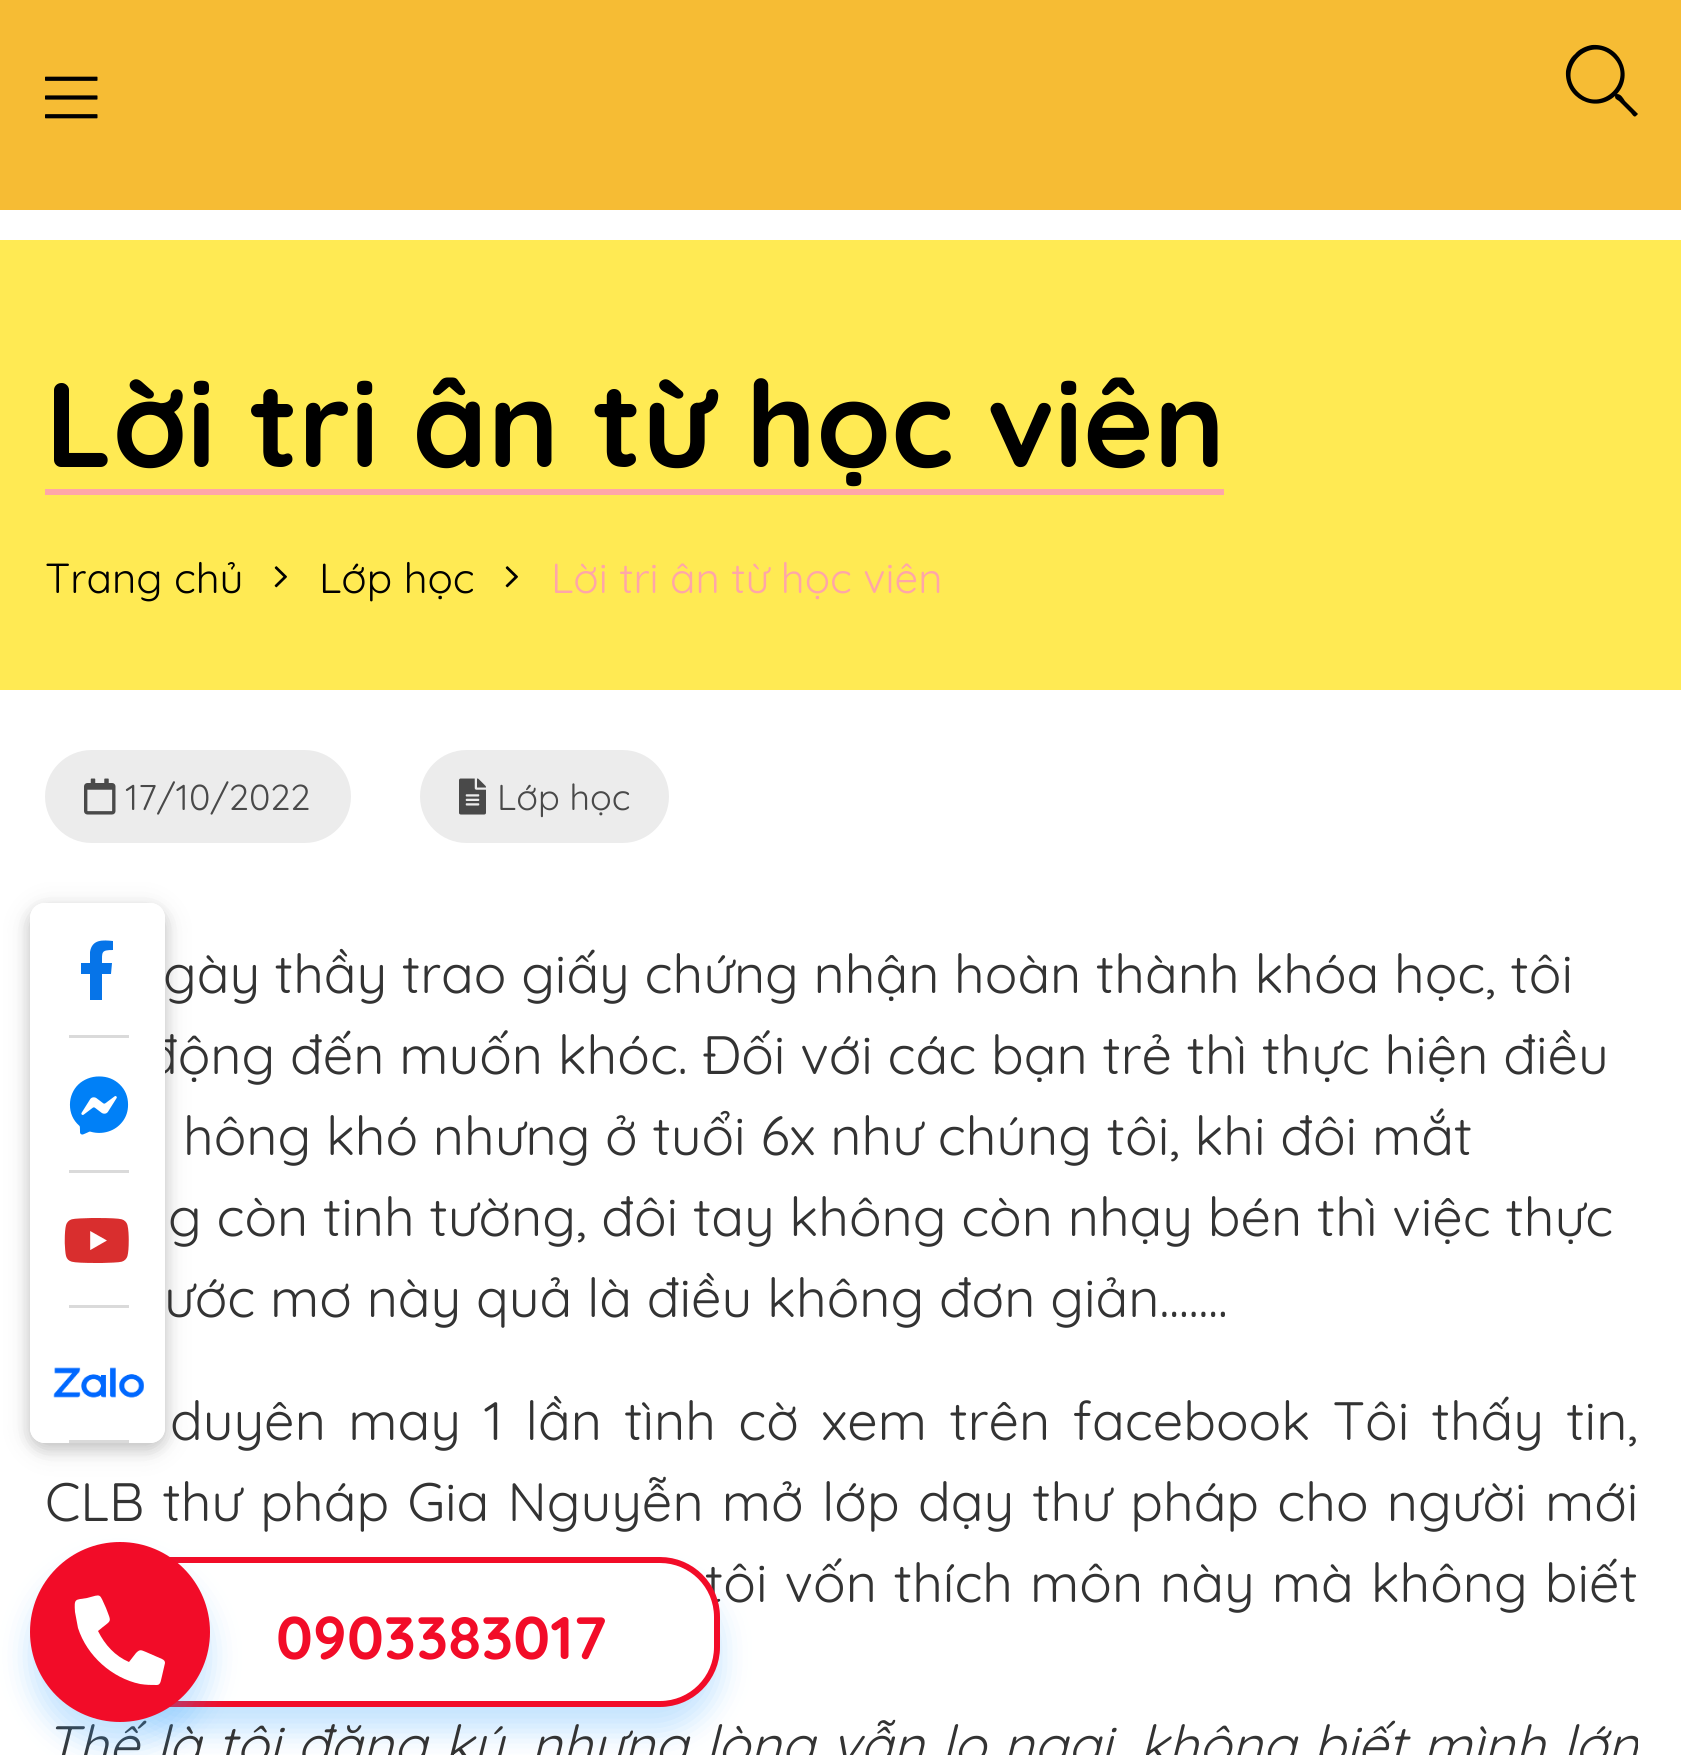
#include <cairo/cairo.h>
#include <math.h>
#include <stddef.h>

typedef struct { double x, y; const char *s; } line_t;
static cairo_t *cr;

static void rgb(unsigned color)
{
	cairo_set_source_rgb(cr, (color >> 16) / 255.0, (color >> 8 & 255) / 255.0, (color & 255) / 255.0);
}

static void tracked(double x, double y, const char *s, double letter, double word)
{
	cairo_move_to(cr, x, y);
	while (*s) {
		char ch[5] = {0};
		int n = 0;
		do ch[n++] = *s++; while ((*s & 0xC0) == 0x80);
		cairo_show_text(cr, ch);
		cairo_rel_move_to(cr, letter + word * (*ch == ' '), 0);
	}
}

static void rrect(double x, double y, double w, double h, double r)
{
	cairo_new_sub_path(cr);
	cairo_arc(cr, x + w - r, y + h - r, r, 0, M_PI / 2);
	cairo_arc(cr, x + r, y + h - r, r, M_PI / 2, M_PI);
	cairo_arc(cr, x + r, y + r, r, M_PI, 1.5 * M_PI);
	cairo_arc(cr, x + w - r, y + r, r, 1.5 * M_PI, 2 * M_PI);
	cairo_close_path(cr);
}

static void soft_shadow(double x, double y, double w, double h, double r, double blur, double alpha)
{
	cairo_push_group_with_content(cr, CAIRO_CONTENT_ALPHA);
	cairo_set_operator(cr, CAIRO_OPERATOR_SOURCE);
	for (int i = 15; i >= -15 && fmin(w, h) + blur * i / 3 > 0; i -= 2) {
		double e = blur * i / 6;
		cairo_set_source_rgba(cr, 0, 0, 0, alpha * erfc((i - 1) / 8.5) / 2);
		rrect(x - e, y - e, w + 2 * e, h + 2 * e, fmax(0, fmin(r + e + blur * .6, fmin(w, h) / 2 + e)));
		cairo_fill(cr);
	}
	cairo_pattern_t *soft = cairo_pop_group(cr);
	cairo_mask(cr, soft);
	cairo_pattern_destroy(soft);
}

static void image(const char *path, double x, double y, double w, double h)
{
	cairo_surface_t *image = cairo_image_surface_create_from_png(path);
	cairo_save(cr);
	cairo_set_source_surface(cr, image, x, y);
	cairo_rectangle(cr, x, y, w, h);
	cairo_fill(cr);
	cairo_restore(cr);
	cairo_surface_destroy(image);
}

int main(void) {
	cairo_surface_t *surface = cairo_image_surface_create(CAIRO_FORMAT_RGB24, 1681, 1755);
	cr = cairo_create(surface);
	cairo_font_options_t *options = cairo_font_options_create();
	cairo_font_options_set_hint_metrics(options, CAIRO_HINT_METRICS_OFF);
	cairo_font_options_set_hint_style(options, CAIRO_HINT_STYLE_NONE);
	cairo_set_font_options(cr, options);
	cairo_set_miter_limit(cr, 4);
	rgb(0xffffff);
	cairo_paint(cr);
	rgb(0xf6bc34);
	cairo_rectangle(cr, 0, 0, 1681, 210);
	cairo_fill(cr);
	image("img/1.png", 45, 76, 53, 43);
	rgb(0x000000);
	cairo_new_path(cr);
	cairo_move_to(cr, 1637, 113);
	cairo_line_to(cr, 1638, 114);
	cairo_line_to(cr, 1636, 116);
	cairo_curve_to(cr, 1634, 118, 1632, 114, 1631, 113);
	cairo_line_to(cr, 1619, 101);
	cairo_curve_to(cr, 1616, 99, 1615, 99, 1615, 96);
	cairo_curve_to(cr, 1595, 114, 1564, 98, 1566, 71);
	cairo_curve_to(cr, 1567, 65, 1570, 58, 1575, 54);
	cairo_curve_to(cr, 1579, 49, 1586, 46, 1592, 45);
	cairo_curve_to(cr, 1619, 43, 1635, 74, 1617, 94);
	cairo_curve_to(cr, 1621, 94, 1623, 98, 1625, 101);
	cairo_close_path(cr);
	cairo_move_to(cr, 1578, 92);
	cairo_curve_to(cr, 1601, 115, 1636, 80, 1613, 57);
	cairo_curve_to(cr, 1590, 34, 1555, 69, 1578, 92);
	cairo_close_path(cr);
	cairo_fill(cr);
	rgb(0xffea53);
	cairo_rectangle(cr, 0, 240, 1681, 450);
	cairo_fill(cr);
	rgb(0xffa6a8);
	cairo_rectangle(cr, 45, 489, 1179, 6);
	cairo_fill(cr);
	image("img/2.png", 274, 566, 13, 22);
	image("img/2.png", 505, 566, 13, 22);
	rgb(0xececec);
	rrect(45, 750, 306, 93, 46.5);
	cairo_fill(cr);
	image("img/3.png", 84, 778, 32, 37);
	rrect(420, 750, 249, 93, 46.5);
	cairo_fill(cr);
	image("img/4.png", 459, 778, 27, 37);
	rgb(0x000000);
	soft_shadow(30, 909, 135, 540, 15, 15, 0.12);
	soft_shadow(30, 909, 135, 540, 15, 7.5, 0.16);
	rgb(0x38a3fd);
	soft_shadow(120, 1581, 600, 150, 60, 15, 0.3);
	cairo_select_font_face(cr, "Quicksand", CAIRO_FONT_SLANT_NORMAL, CAIRO_FONT_WEIGHT_BOLD);
	cairo_set_font_size(cr, 120);
	rgb(0x000000);
	cairo_move_to(cr, 45, 467);
	cairo_show_text(cr, "Lời tri ân từ học viên");
	cairo_select_font_face(cr, "Quicksand", CAIRO_FONT_SLANT_NORMAL, CAIRO_FONT_WEIGHT_NORMAL);
	cairo_set_font_size(cr, 42);
	cairo_move_to(cr, 45, 593);
	cairo_show_text(cr, "Trang chủ");
	cairo_move_to(cr, 319, 593);
	cairo_show_text(cr, "Lớp học");
	rgb(0xffa6a8);
	cairo_move_to(cr, 551, 593);
	cairo_show_text(cr, "Lời tri ân từ học viên");
	cairo_set_font_size(cr, 36);
	rgb(0x494949);
	cairo_move_to(cr, 125, 810);
	cairo_show_text(cr, "17/10/2022");
	cairo_move_to(cr, 497, 810);
	cairo_show_text(cr, "Lớp học");
	cairo_set_font_size(cr, 54);
	rgb(0x333333);
	{
		static const line_t items[] = {
			{163, 993, "gày thầy trao giấy chứng nhận hoàn thành khóa học, tôi"},
			{145, 1074, "động đến muốn khóc. Đối với các bạn trẻ thì thực hiện điều"},
			{183, 1155, "hông khó nhưng ở tuổi 6x như chúng tôi, khi đôi mắt"},
			{168, 1236, "g còn tinh tường, đôi tay không còn nhạy bén thì việc thực"},
			{164, 1317, "ước mơ này quả là điều không đơn giản......."},
		};
		for (size_t i = 0; i < sizeof items / sizeof *items; i++) {
			cairo_move_to(cr, items[i].x, items[i].y);
			cairo_show_text(cr, items[i].s);
		}
	}
	tracked(170, 1440, "duyên may 1 lần tình cờ xem trên facebook Tôi thấy tin,", 0, 7.6);
	tracked(45, 1521, "CLB thư pháp Gia Nguyễn mở lớp dạy thư pháp cho người mới", 0, 3.5);
	tracked(705, 1602, "tôi vốn thích môn này mà không biết", 0, 2.25);
	cairo_save(cr);
	cairo_rectangle(cr, 45, 720, 1593, 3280);
	cairo_clip(cr);
	cairo_select_font_face(cr, "Quicksand", CAIRO_FONT_SLANT_ITALIC, CAIRO_FONT_WEIGHT_NORMAL);
	tracked(45, 1764, "Thế là tôi đăng ký, nhưng lòng vẫn lo ngại, không biết mình lớn", 0, 2);
	cairo_restore(cr);
	rgb(0xffffff);
	rrect(30, 903, 135, 540, 15);
	cairo_fill(cr);
	cairo_new_path(cr);
	cairo_move_to(cr, 45, 903);
	cairo_line_to(cr, 150, 903);
	cairo_curve_to(cr, 158.5, 903, 165, 909.5, 165, 918);
	cairo_line_to(cr, 165, 1038);
	cairo_line_to(cr, 30, 1038);
	cairo_line_to(cr, 30, 918);
	cairo_curve_to(cr, 30, 909.5, 36.5, 903, 45, 903);
	cairo_close_path(cr);
	cairo_fill(cr);
	rgb(0x0674e8);
	cairo_new_path(cr);
	cairo_move_to(cr, 111, 974);
	cairo_line_to(cr, 102, 974);
	cairo_line_to(cr, 102, 1000);
	cairo_line_to(cr, 90, 1000);
	cairo_line_to(cr, 90, 974);
	cairo_line_to(cr, 81, 974);
	cairo_line_to(cr, 81, 963);
	cairo_line_to(cr, 90, 963);
	cairo_line_to(cr, 90, 952);
	cairo_curve_to(cr, 92, 939, 103, 940, 113, 941);
	cairo_line_to(cr, 113, 950);
	cairo_curve_to(cr, 101, 950, 102, 952, 102, 963);
	cairo_line_to(cr, 112, 963);
	cairo_close_path(cr);
	cairo_fill(cr);
	rgb(0xdadada);
	cairo_rectangle(cr, 69, 1035, 60, 3);
	cairo_fill(cr);
	image("img/5.png", 69, 1076, 60, 59);
	cairo_rectangle(cr, 69, 1170, 60, 3);
	cairo_fill(cr);
	image("img/6.png", 64, 1218, 65, 45);
	cairo_rectangle(cr, 69, 1305, 60, 3);
	cairo_fill(cr);
	rgb(0xffffff);
	cairo_new_path(cr);
	cairo_move_to(cr, 30, 1308);
	cairo_line_to(cr, 165, 1308);
	cairo_line_to(cr, 165, 1428);
	cairo_curve_to(cr, 165, 1436.5, 158.5, 1443, 150, 1443);
	cairo_line_to(cr, 45, 1443);
	cairo_curve_to(cr, 36.5, 1443, 30, 1436.5, 30, 1428);
	cairo_close_path(cr);
	cairo_fill(cr);
	image("img/7.png", 53, 1367, 91, 31);
	rgb(0xdadada);
	cairo_rectangle(cr, 69, 1440, 60, 3);
	cairo_fill(cr);
	rgb(0xffffff);
	cairo_new_path(cr);
	cairo_move_to(cr, 123, 1560);
	cairo_line_to(cr, 660, 1560);
	cairo_curve_to(cr, 691.5, 1560, 717, 1585.5, 717, 1617);
	cairo_line_to(cr, 717, 1647);
	cairo_curve_to(cr, 717, 1678.5, 691.5, 1704, 660, 1704);
	cairo_line_to(cr, 123, 1704);
	cairo_close_path(cr);
	cairo_fill_preserve(cr);
	rgb(0xf20c28);
	cairo_set_line_width(cr, 6);
	cairo_stroke(cr);
	rgb(0x38a3fd);
	soft_shadow(30, 1566, 180, 180, 90, 15, 0.3);
	rgb(0xf20c28);
	cairo_arc(cr, 120, 1632, 87, 0, 2 * M_PI);
	cairo_fill_preserve(cr);
	cairo_stroke(cr);
	rgb(0xffffff);
	cairo_new_path(cr);
	cairo_move_to(cr, 162, 1659);
	cairo_curve_to(cr, 164, 1660, 165, 1661, 165, 1663);
	cairo_line_to(cr, 162, 1676);
	cairo_curve_to(cr, 161, 1679, 161, 1685, 157, 1685);
	cairo_curve_to(cr, 150, 1685, 147, 1685, 140, 1684);
	cairo_curve_to(cr, 112, 1678, 87, 1656, 78, 1628);
	cairo_curve_to(cr, 77, 1623, 76, 1617, 75, 1612);
	cairo_curve_to(cr, 74, 1598, 75, 1600, 87, 1598);
	cairo_curve_to(cr, 102, 1594, 99, 1593, 106, 1608);
	cairo_curve_to(cr, 112, 1624, 112, 1619, 98, 1631);
	cairo_curve_to(cr, 105, 1645, 115, 1656, 129, 1662);
	cairo_line_to(cr, 136, 1653);
	cairo_curve_to(cr, 140, 1649, 141, 1650, 146, 1652);
	cairo_close_path(cr);
	cairo_fill(cr);
	cairo_select_font_face(cr, "Quicksand", CAIRO_FONT_SLANT_NORMAL, CAIRO_FONT_WEIGHT_BOLD);
	cairo_set_font_size(cr, 60);
	rgb(0xf20c28);
	cairo_move_to(cr, 276, 1659);
	cairo_show_text(cr, "0903383017");
	cairo_surface_write_to_png(surface, "page.png");
	cairo_font_options_destroy(options);
	cairo_destroy(cr);
	cairo_surface_destroy(surface);
	return 0;
}
